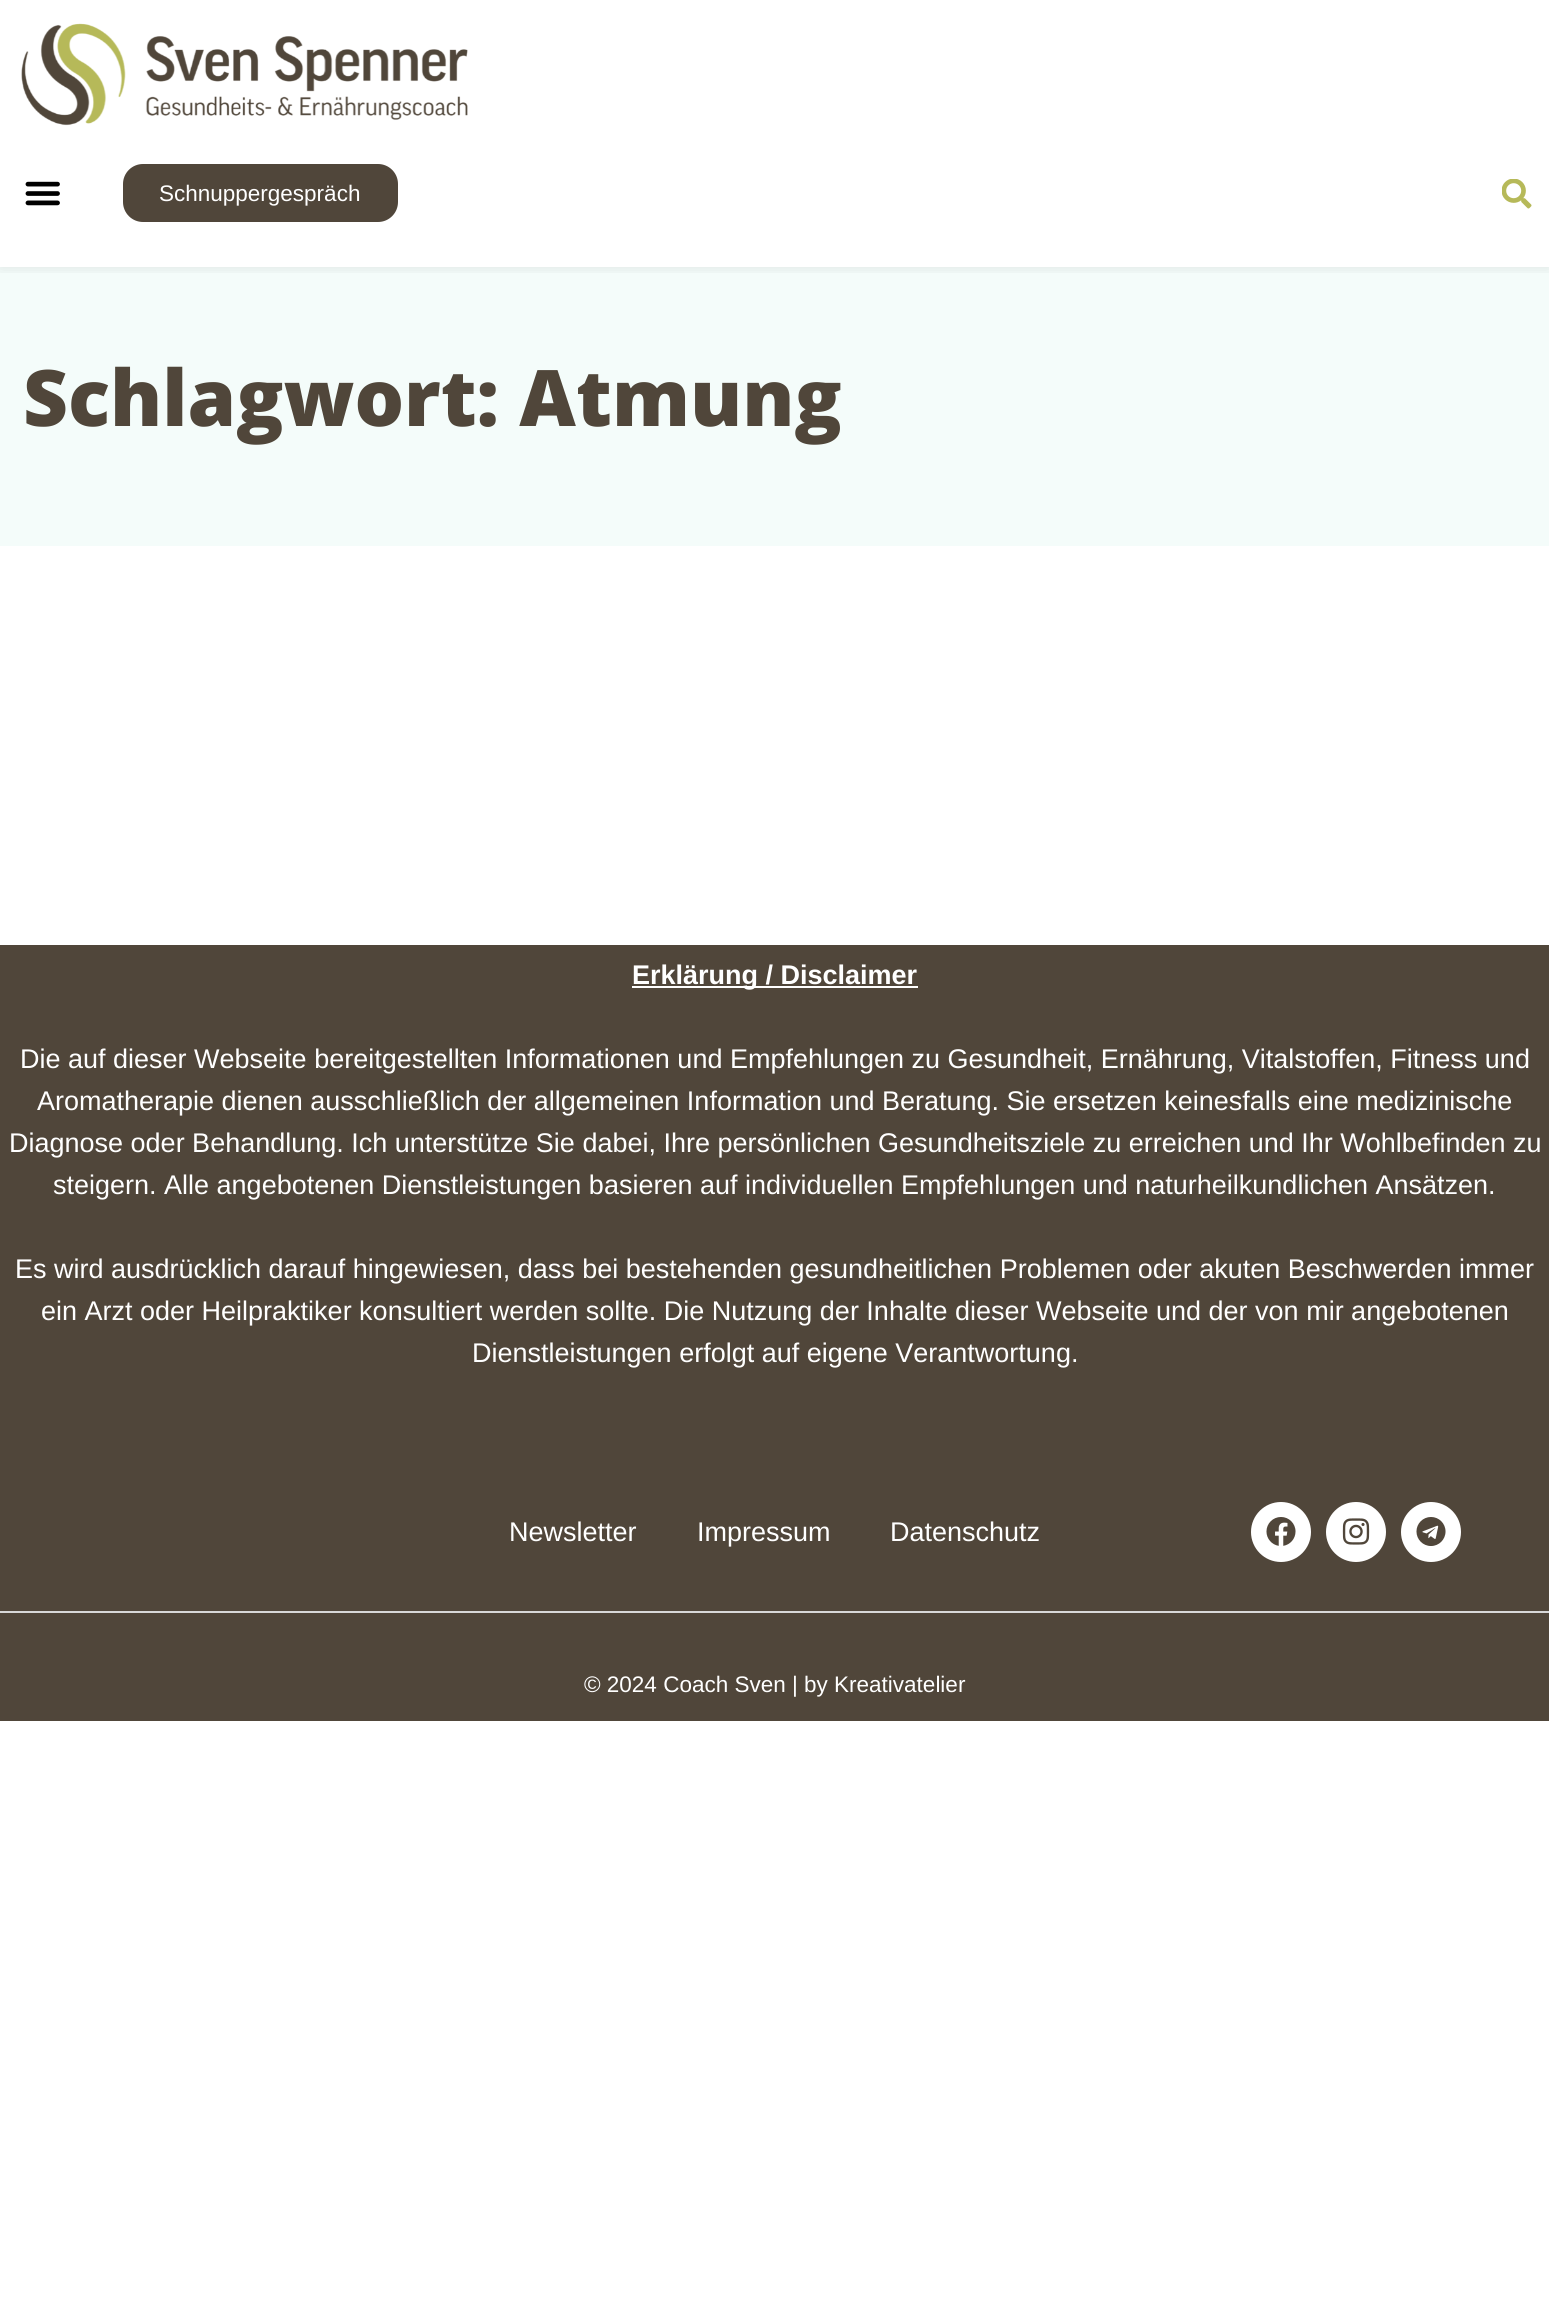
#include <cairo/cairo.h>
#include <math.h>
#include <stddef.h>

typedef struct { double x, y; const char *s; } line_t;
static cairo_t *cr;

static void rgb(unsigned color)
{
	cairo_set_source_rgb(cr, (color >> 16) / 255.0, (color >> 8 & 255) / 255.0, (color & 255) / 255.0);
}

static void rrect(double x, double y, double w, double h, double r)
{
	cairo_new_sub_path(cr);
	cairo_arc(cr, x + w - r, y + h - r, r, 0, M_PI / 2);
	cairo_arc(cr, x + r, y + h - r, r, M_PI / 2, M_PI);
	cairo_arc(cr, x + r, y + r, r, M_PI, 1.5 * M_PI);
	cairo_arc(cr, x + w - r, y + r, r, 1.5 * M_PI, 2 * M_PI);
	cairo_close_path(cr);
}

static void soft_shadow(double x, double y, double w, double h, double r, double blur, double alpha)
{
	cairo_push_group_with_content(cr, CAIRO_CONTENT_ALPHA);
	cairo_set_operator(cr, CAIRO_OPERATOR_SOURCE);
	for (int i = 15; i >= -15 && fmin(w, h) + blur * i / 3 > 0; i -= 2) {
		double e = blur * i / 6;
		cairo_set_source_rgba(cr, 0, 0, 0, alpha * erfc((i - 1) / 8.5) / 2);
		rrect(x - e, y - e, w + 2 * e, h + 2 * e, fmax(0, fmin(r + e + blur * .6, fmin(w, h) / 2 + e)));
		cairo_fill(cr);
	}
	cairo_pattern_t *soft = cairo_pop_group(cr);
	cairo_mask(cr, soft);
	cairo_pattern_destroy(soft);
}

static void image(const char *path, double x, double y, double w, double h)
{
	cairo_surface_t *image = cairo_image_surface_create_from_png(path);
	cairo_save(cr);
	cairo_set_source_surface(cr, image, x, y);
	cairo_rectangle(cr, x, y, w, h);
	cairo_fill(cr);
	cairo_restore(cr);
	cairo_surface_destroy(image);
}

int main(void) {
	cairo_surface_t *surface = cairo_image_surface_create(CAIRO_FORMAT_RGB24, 1549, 2319);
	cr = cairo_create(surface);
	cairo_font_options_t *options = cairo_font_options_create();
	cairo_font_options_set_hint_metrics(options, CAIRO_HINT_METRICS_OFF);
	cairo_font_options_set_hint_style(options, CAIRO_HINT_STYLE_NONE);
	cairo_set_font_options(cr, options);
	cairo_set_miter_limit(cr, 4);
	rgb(0xffffff);
	cairo_paint(cr);
	rgb(0xf4fcfa);
	cairo_rectangle(cr, 0, 267, 1549, 279);
	cairo_fill(cr);
	cairo_save(cr);
	cairo_rectangle(cr, 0, 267, 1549, 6);
	cairo_clip(cr);
	rgb(0x000000);
	soft_shadow(0, 0, 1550, 267, 0, 7.5, 0.1);
	cairo_restore(cr);
	image("img/1.png", 21, 23, 447, 103);
	image("img/2.png", 25, 181, 35, 25);
	rgb(0x50463a);
	rrect(123, 164, 275, 58, 20);
	cairo_fill(cr);
	image("img/3.png", 1502, 179, 30, 30);
	cairo_rectangle(cr, 0, 945, 1549, 776);
	cairo_fill(cr);
	rgb(0xffffff);
	cairo_rectangle(cr, 632, 986, 286, 2);
	cairo_fill(cr);
	cairo_arc(cr, 1281, 1532, 30, 0, 2 * M_PI);
	cairo_fill(cr);
	image("img/4.png", 1266, 1517, 30, 29);
	cairo_arc(cr, 1356, 1532, 30, 0, 2 * M_PI);
	cairo_fill(cr);
	image("img/5.png", 1342, 1518, 28, 27);
	cairo_arc(cr, 1431, 1532, 30, 0, 2 * M_PI);
	cairo_fill(cr);
	image("img/6.png", 1416, 1517, 30, 29);
	rgb(0xd8d8d8);
	cairo_rectangle(cr, 0, 1611, 1549, 2);
	cairo_fill(cr);
	cairo_select_font_face(cr, "Liberation Sans", CAIRO_FONT_SLANT_NORMAL, CAIRO_FONT_WEIGHT_NORMAL);
	cairo_set_font_size(cr, 22.5);
	rgb(0xffffff);
	cairo_move_to(cr, 159, 201);
	cairo_show_text(cr, "Schnuppergespräch");
	cairo_select_font_face(cr, "Open Sans ExtraBold", CAIRO_FONT_SLANT_NORMAL, CAIRO_FONT_WEIGHT_NORMAL);
	cairo_set_font_size(cr, 78);
	rgb(0x50463a);
	cairo_move_to(cr, 23, 426);
	cairo_show_text(cr, "Schlagwort: Atmung");
	cairo_select_font_face(cr, "Liberation Sans", CAIRO_FONT_SLANT_NORMAL, CAIRO_FONT_WEIGHT_BOLD);
	cairo_set_font_size(cr, 27);
	rgb(0xffffff);
	cairo_move_to(cr, 632, 984);
	cairo_show_text(cr, "Erklärung / Disclaimer");
	cairo_select_font_face(cr, "Liberation Sans", CAIRO_FONT_SLANT_NORMAL, CAIRO_FONT_WEIGHT_NORMAL);
	{
		static const line_t items[] = {
			{20, 1068, "Die auf dieser Webseite bereitgestellten Informationen und Empfehlungen zu Gesundheit, Ernährung, Vitalstoffen, Fitness und"},
			{37, 1110, "Aromatherapie dienen ausschließlich der allgemeinen Information und Beratung. Sie ersetzen keinesfalls eine medizinische"},
			{9, 1152, "Diagnose oder Behandlung. Ich unterstütze Sie dabei, Ihre persönlichen Gesundheitsziele zu erreichen und Ihr Wohlbefinden zu"},
			{53, 1194, "steigern. Alle angebotenen Dienstleistungen basieren auf individuellen Empfehlungen und naturheilkundlichen Ansätzen."},
			{15, 1278, "Es wird ausdrücklich darauf hingewiesen, dass bei bestehenden gesundheitlichen Problemen oder akuten Beschwerden immer"},
			{41, 1320, "ein Arzt oder Heilpraktiker konsultiert werden sollte. Die Nutzung der Inhalte dieser Webseite und der von mir angebotenen"},
			{472, 1362, "Dienstleistungen erfolgt auf eigene Verantwortung."},
			{509, 1541, "Newsletter"},
			{697, 1541, "Impressum"},
			{890, 1541, "Datenschutz"},
		};
		for (size_t i = 0; i < sizeof items / sizeof *items; i++) {
			cairo_move_to(cr, items[i].x, items[i].y);
			cairo_show_text(cr, items[i].s);
		}
	}
	cairo_set_font_size(cr, 22.5);
	cairo_move_to(cr, 584, 1692);
	cairo_show_text(cr, "© 2024 Coach Sven | by Kreativatelier");
	cairo_surface_write_to_png(surface, "page.png");
	cairo_font_options_destroy(options);
	cairo_destroy(cr);
	cairo_surface_destroy(surface);
	return 0;
}
